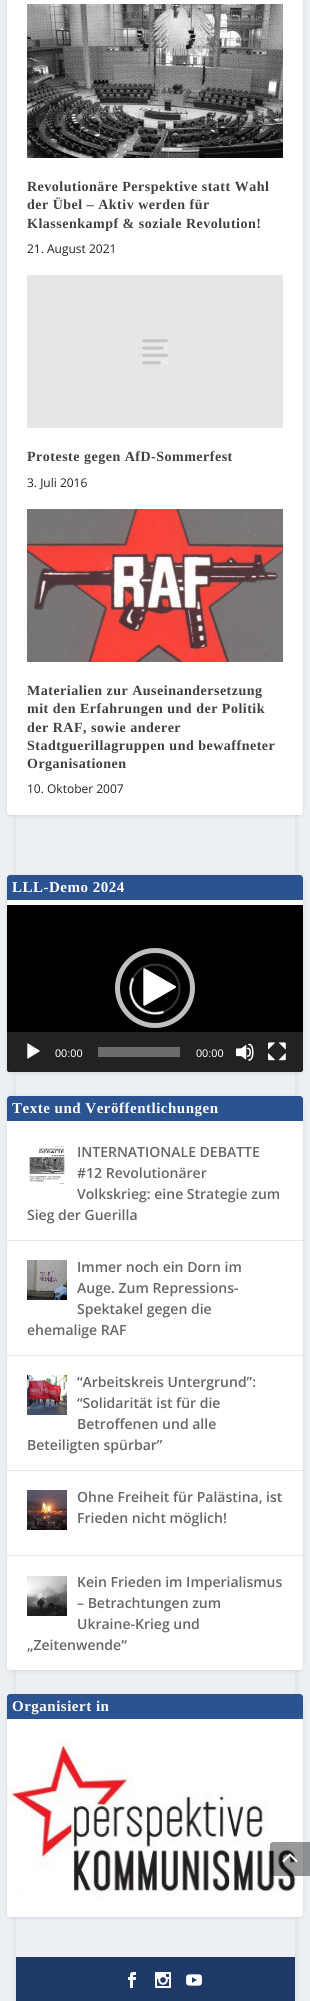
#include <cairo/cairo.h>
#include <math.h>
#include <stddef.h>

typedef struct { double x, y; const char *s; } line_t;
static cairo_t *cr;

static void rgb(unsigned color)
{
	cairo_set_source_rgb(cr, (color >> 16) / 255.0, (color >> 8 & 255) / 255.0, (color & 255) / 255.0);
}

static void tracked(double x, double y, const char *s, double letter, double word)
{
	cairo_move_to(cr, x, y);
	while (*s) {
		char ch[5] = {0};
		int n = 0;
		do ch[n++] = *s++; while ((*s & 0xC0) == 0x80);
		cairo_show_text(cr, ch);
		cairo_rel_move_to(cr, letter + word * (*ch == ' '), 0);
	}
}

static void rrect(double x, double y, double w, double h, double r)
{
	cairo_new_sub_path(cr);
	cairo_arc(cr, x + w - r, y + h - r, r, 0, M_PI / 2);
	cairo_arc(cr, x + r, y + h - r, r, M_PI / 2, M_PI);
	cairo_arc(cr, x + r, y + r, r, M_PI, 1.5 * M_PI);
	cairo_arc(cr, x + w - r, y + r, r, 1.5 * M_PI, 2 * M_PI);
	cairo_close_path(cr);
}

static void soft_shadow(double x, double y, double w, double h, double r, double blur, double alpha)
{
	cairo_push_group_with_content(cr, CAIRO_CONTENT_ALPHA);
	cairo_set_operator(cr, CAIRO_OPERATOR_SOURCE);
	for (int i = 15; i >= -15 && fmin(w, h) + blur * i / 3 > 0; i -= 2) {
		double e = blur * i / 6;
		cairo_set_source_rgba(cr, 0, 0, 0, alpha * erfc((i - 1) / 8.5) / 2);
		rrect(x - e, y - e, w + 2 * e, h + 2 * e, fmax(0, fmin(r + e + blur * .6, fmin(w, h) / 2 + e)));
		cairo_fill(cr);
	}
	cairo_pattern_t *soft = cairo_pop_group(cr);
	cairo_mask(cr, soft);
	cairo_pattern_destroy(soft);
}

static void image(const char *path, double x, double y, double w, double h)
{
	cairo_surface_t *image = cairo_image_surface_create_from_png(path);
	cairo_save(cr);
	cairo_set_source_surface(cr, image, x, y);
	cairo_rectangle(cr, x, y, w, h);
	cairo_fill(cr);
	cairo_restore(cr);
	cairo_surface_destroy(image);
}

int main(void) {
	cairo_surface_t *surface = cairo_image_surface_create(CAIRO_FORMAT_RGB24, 310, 2001);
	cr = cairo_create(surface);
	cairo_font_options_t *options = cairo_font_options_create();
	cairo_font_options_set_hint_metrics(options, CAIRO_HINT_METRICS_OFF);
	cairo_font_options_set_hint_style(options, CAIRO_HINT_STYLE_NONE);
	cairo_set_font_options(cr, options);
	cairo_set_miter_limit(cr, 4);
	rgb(0xecf0f5);
	cairo_paint(cr);
	cairo_save(cr);
	cairo_set_fill_rule(cr, CAIRO_FILL_RULE_EVEN_ODD);
	cairo_new_path(cr);
	cairo_move_to(cr, 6, 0);
	cairo_line_to(cr, 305, 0);
	cairo_line_to(cr, 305, 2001);
	cairo_line_to(cr, 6, 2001);
	cairo_close_path(cr);
	cairo_move_to(cr, 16, -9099);
	cairo_line_to(cr, 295, -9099);
	cairo_line_to(cr, 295, 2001);
	cairo_line_to(cr, 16, 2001);
	cairo_close_path(cr);
	cairo_clip(cr);
	rgb(0x000000);
	soft_shadow(16, -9, 279, 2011, 0, 3, 0.1);
	cairo_restore(cr);
	rgb(0x000000);
	soft_shadow(7, -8, 296, 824, 3, 1.5, 0.1);
	rgb(0xffffff);
	rrect(7, -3, 296, 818, 3);
	cairo_fill(cr);
	image("img/1.png", 27, 4, 256, 154);
	rgb(0xe6e6e6);
	cairo_rectangle(cr, 27, 275, 256, 153);
	cairo_fill(cr);
	image("img/2.png", 142, 339, 26, 26);
	image("img/3.png", 27, 509, 256, 153);
	rgb(0x000000);
	soft_shadow(7, 876, 296, 197, 3, 1.5, 0.1);
	rgb(0xffffff);
	rrect(7, 875, 296, 197, 3);
	cairo_fill(cr);
	rgb(0x2b5291);
	cairo_new_path(cr);
	cairo_move_to(cr, 10, 875);
	cairo_line_to(cr, 300, 875);
	cairo_curve_to(cr, 301.5, 875, 303, 876.5, 303, 878);
	cairo_line_to(cr, 303, 900);
	cairo_line_to(cr, 7, 900);
	cairo_line_to(cr, 7, 878);
	cairo_curve_to(cr, 7, 876.5, 8.5, 875, 10, 875);
	cairo_close_path(cr);
	cairo_fill(cr);
	image("img/4.png", 7, 905, 296, 167);
	image("img/5.png", 115, 948, 80, 80);
	rgb(0x222222);
	cairo_new_path(cr);
	cairo_move_to(cr, 7, 1032);
	cairo_line_to(cr, 303, 1032);
	cairo_line_to(cr, 303, 1069);
	cairo_curve_to(cr, 303, 1070.5, 301.5, 1072, 300, 1072);
	cairo_line_to(cr, 10, 1072);
	cairo_curve_to(cr, 8.5, 1072, 7, 1070.5, 7, 1069);
	cairo_close_path(cr);
	cairo_fill(cr);
	image("img/6.png", 27, 1043, 13, 16);
	rgb(0x6b6b6b);
	cairo_rectangle(cr, 98, 1047, 82, 10);
	cairo_fill(cr);
	image("img/7.png", 236, 1043, 18, 18);
	image("img/8.png", 268, 1042, 18, 19);
	rgb(0x000000);
	soft_shadow(7, 1097, 296, 574, 3, 1.5, 0.1);
	rgb(0xffffff);
	rrect(7, 1096, 296, 574, 3);
	cairo_fill(cr);
	rgb(0x2b5291);
	cairo_new_path(cr);
	cairo_move_to(cr, 10, 1096);
	cairo_line_to(cr, 300, 1096);
	cairo_curve_to(cr, 301.5, 1096, 303, 1097.5, 303, 1099);
	cairo_line_to(cr, 303, 1121);
	cairo_line_to(cr, 7, 1121);
	cairo_line_to(cr, 7, 1099);
	cairo_curve_to(cr, 7, 1097.5, 8.5, 1096, 10, 1096);
	cairo_close_path(cr);
	cairo_fill(cr);
	rgb(0xe6e6e6);
	cairo_rectangle(cr, 7, 1240, 296, 1);
	cairo_fill(cr);
	image("img/9.png", 29, 1146, 36, 38);
	cairo_rectangle(cr, 7, 1355, 296, 1);
	cairo_fill(cr);
	image("img/10.png", 27, 1260, 40, 40);
	cairo_rectangle(cr, 7, 1470, 296, 1);
	cairo_fill(cr);
	image("img/11.png", 27, 1375, 40, 40);
	cairo_rectangle(cr, 7, 1555, 296, 1);
	cairo_fill(cr);
	image("img/12.png", 27, 1490, 40, 40);
	image("img/13.png", 27, 1576, 40, 40);
	rgb(0x000000);
	soft_shadow(7, 1695, 296, 223, 3, 1.5, 0.1);
	rgb(0xffffff);
	rrect(7, 1694, 296, 223, 3);
	cairo_fill(cr);
	rgb(0x2b5291);
	cairo_new_path(cr);
	cairo_move_to(cr, 10, 1694);
	cairo_line_to(cr, 300, 1694);
	cairo_curve_to(cr, 301.5, 1694, 303, 1695.5, 303, 1697);
	cairo_line_to(cr, 303, 1719);
	cairo_line_to(cr, 7, 1719);
	cairo_line_to(cr, 7, 1697);
	cairo_curve_to(cr, 7, 1695.5, 8.5, 1694, 10, 1694);
	cairo_close_path(cr);
	cairo_fill(cr);
	image("img/14.png", 7, 1740, 292, 158);
	rgb(0x1e3966);
	cairo_rectangle(cr, 16, 1957, 279, 44);
	cairo_fill(cr);
	image("img/15.png", 128, 1972, 8, 16);
	image("img/16.png", 155, 1972, 16, 16);
	image("img/17.png", 186, 1974, 16, 12);
	cairo_set_source_rgba(cr, 0, 0, 0, 0.4);
	cairo_new_path(cr);
	cairo_move_to(cr, 273, 1842);
	cairo_line_to(cr, 310, 1842);
	cairo_line_to(cr, 310, 1876);
	cairo_line_to(cr, 273, 1876);
	cairo_curve_to(cr, 271.5, 1876, 270, 1874.5, 270, 1873);
	cairo_line_to(cr, 270, 1845);
	cairo_curve_to(cr, 270, 1843.5, 271.5, 1842, 273, 1842);
	cairo_close_path(cr);
	cairo_fill(cr);
	image("img/18.png", 282, 1853, 16, 10);
	cairo_select_font_face(cr, "Liberation Serif", CAIRO_FONT_SLANT_NORMAL, CAIRO_FONT_WEIGHT_BOLD);
	cairo_set_font_size(cr, 14);
	rgb(0x404040);
	{
		static const line_t items[] = {
			{27, 191, "Revolutionäre Perspektive statt Wahl"},
			{27, 209, "der Übel – Aktiv werden für"},
			{27, 228, "Klassenkampf & soziale Revolution!"},
		};
		for (size_t i = 0; i < sizeof items / sizeof *items; i++) {
			tracked(items[i].x, items[i].y, items[i].s, 0.5, 0);
		}
	}
	cairo_select_font_face(cr, "Open Sans", CAIRO_FONT_SLANT_NORMAL, CAIRO_FONT_WEIGHT_NORMAL);
	cairo_set_font_size(cr, 12);
	rgb(0x222222);
	cairo_move_to(cr, 27, 253);
	cairo_show_text(cr, "21. August 2021");
	cairo_select_font_face(cr, "Liberation Serif", CAIRO_FONT_SLANT_NORMAL, CAIRO_FONT_WEIGHT_BOLD);
	cairo_set_font_size(cr, 14);
	rgb(0x404040);
	tracked(27, 461, "Proteste gegen AfD-Sommerfest", 0.5, 0);
	cairo_select_font_face(cr, "Open Sans", CAIRO_FONT_SLANT_NORMAL, CAIRO_FONT_WEIGHT_NORMAL);
	cairo_set_font_size(cr, 12);
	rgb(0x222222);
	cairo_move_to(cr, 27, 487);
	cairo_show_text(cr, "3. Juli 2016");
	cairo_select_font_face(cr, "Liberation Serif", CAIRO_FONT_SLANT_NORMAL, CAIRO_FONT_WEIGHT_BOLD);
	cairo_set_font_size(cr, 14);
	rgb(0x404040);
	{
		static const line_t items[] = {
			{27, 695, "Materialien zur Auseinandersetzung"},
			{27, 713, "mit den Erfahrungen und der Politik"},
			{27, 732, "der RAF, sowie anderer"},
			{27, 750, "Stadtguerillagruppen und bewaffneter"},
			{27, 768, "Organisationen"},
		};
		for (size_t i = 0; i < sizeof items / sizeof *items; i++) {
			tracked(items[i].x, items[i].y, items[i].s, 0.5, 0);
		}
	}
	cairo_select_font_face(cr, "Open Sans", CAIRO_FONT_SLANT_NORMAL, CAIRO_FONT_WEIGHT_NORMAL);
	cairo_set_font_size(cr, 12);
	rgb(0x222222);
	cairo_move_to(cr, 27, 793);
	cairo_show_text(cr, "10. Oktober 2007");
	cairo_select_font_face(cr, "Liberation Serif", CAIRO_FONT_SLANT_NORMAL, CAIRO_FONT_WEIGHT_BOLD);
	cairo_set_font_size(cr, 15);
	rgb(0xffffff);
	tracked(12, 892, "LLL-Demo 2024", 0.5, 0);
	cairo_select_font_face(cr, "Liberation Sans", CAIRO_FONT_SLANT_NORMAL, CAIRO_FONT_WEIGHT_NORMAL);
	cairo_set_font_size(cr, 11);
	cairo_move_to(cr, 55, 1057);
	cairo_show_text(cr, "00:00");
	cairo_move_to(cr, 196, 1057);
	cairo_show_text(cr, "00:00");
	cairo_select_font_face(cr, "Liberation Serif", CAIRO_FONT_SLANT_NORMAL, CAIRO_FONT_WEIGHT_BOLD);
	cairo_set_font_size(cr, 15);
	tracked(12, 1113, "Texte und Veröffentlichungen", 0.5, 0);
	cairo_select_font_face(cr, "Open Sans SemiBold", CAIRO_FONT_SLANT_NORMAL, CAIRO_FONT_WEIGHT_NORMAL);
	cairo_set_font_size(cr, 14);
	rgb(0x666666);
	{
		static const line_t items[] = {
			{77, 1157, "INTERNATIONALE DEBATTE"},
			{77, 1178, "#12 Revolutionärer"},
			{77, 1199, "Volkskrieg: eine Strategie zum"},
			{27, 1220, "Sieg der Guerilla"},
			{77, 1272, "Immer noch ein Dorn im"},
			{77, 1293, "Auge. Zum Repressions-"},
			{77, 1314, "Spektakel gegen die"},
			{27, 1335, "ehemalige RAF"},
			{77, 1387, "“Arbeitskreis Untergrund”:"},
			{77, 1408, "“Solidarität ist für die"},
			{77, 1429, "Betroffenen und alle"},
			{27, 1450, "Beteiligten spürbar”"},
			{77, 1502, "Ohne Freiheit für Palästina, ist"},
			{77, 1523, "Frieden nicht möglich!"},
			{77, 1587, "Kein Frieden im Imperialismus"},
			{77, 1608, "– Betrachtungen zum"},
			{77, 1629, "Ukraine-Krieg und"},
			{27, 1650, "„Zeitenwende“"},
		};
		for (size_t i = 0; i < sizeof items / sizeof *items; i++) {
			cairo_move_to(cr, items[i].x, items[i].y);
			cairo_show_text(cr, items[i].s);
		}
	}
	cairo_select_font_face(cr, "Liberation Serif", CAIRO_FONT_SLANT_NORMAL, CAIRO_FONT_WEIGHT_BOLD);
	cairo_set_font_size(cr, 15);
	rgb(0xffffff);
	tracked(12, 1711, "Organisiert in", 0.5, 0);
	cairo_surface_write_to_png(surface, "page.png");
	cairo_font_options_destroy(options);
	cairo_destroy(cr);
	cairo_surface_destroy(surface);
	return 0;
}
